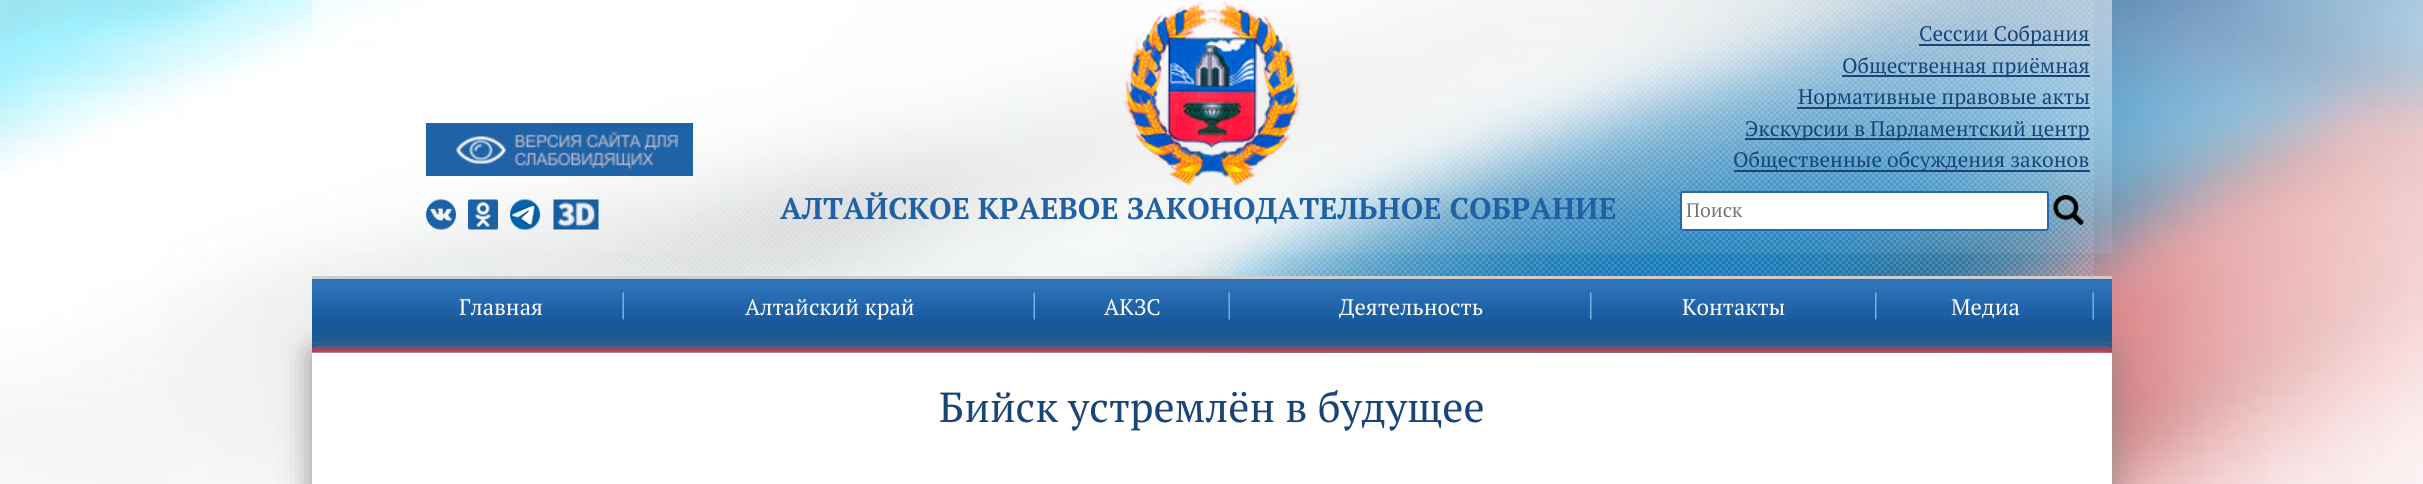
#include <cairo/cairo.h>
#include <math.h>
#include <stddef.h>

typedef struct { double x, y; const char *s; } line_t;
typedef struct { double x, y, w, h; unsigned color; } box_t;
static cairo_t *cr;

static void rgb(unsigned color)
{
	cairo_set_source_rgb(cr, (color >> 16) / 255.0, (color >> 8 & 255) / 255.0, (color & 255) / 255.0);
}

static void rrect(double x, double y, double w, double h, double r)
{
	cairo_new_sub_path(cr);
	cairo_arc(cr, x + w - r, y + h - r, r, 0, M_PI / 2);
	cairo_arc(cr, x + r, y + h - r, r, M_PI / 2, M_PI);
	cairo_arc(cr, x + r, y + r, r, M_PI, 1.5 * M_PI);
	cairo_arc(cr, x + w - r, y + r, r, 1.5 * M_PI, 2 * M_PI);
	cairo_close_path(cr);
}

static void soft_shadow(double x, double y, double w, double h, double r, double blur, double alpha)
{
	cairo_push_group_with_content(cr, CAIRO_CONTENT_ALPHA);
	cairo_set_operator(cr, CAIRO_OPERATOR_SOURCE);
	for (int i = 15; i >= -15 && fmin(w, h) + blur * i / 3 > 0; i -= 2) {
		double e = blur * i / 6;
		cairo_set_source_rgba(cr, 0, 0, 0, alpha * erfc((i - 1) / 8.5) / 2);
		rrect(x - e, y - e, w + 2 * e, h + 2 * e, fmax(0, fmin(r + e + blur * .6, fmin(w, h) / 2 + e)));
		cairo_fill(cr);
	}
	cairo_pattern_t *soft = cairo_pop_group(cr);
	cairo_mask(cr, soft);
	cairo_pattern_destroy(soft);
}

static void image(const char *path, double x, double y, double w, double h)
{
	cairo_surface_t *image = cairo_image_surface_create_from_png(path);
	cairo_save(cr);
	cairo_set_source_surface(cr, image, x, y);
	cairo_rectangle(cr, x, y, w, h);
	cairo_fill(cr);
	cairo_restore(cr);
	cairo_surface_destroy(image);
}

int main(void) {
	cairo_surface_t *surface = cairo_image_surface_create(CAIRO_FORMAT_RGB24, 2423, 484);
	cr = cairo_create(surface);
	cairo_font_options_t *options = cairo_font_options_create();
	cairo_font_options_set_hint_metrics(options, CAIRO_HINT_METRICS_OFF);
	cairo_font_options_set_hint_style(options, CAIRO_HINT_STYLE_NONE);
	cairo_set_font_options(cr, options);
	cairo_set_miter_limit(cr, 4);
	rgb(0xffffff);
	cairo_paint(cr);
	image("img/1.png", 0, 0, 2423, 484);
	image("img/2.png", 330, 0, 1764, 276);
	image("img/3.png", 312, 0, 1800, 254);
	rgb(0x1f62a5);
	cairo_rectangle(cr, 426, 123, 267, 53);
	cairo_fill(cr);
	image("img/4.png", 455, 132, 223, 38);
	image("img/5.png", 426, 199, 30, 31);
	image("img/6.png", 468, 199, 30, 31);
	image("img/7.png", 510, 199, 30, 31);
	image("img/8.png", 553, 199, 46, 31);
	image("img/9.png", 1122, 0, 180, 186);
	{
		static const box_t items[] = {
			{1919, 44, 171, 2, 0x184478},
			{1842, 75, 248, 2, 0x184478},
			{1797, 107, 293, 2, 0x184478},
			{1745, 138, 345, 2, 0x184478},
			{1734, 170, 356, 2, 0x184478},
		};
		for (size_t i = 0; i < sizeof items / sizeof *items; i++) {
			rgb(items[i].color);
			cairo_rectangle(cr, items[i].x, items[i].y, items[i].w, items[i].h);
			cairo_fill(cr);
		}
	}
	rgb(0xffffff);
	rrect(1681, 192, 367, 38, 2);
	cairo_fill_preserve(cr);
	rgb(0x2667ae);
	cairo_stroke(cr);
	image("img/10.png", 2053, 195, 31, 30);
	image("img/11.png", 312, 279, 1800, 74);
	rgb(0xcdcdcd);
	cairo_rectangle(cr, 312, 276, 1800, 3);
	cairo_fill(cr);
	rgb(0x948d8d);
	soft_shadow(312, 353, 1800, 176, 0, 15, 1);
	image("img/12.png", 622, 292, 2, 28);
	image("img/12.png", 1033, 292, 2, 28);
	image("img/12.png", 1228, 292, 2, 28);
	image("img/13.png", 1590, 292, 2, 28);
	image("img/13.png", 1875, 292, 2, 28);
	image("img/14.png", 2092, 292, 2, 28);
	rgb(0xffffff);
	cairo_rectangle(cr, 312, 353, 1800, 131);
	cairo_fill(cr);
	cairo_select_font_face(cr, "PT Serif", CAIRO_FONT_SLANT_NORMAL, CAIRO_FONT_WEIGHT_BOLD);
	cairo_set_font_size(cr, 30);
	rgb(0x2061a4);
	cairo_move_to(cr, 780, 219);
	cairo_show_text(cr, "АЛТАЙСКОЕ КРАЕВОЕ ЗАКОНОДАТЕЛЬНОЕ CОБРАНИЕ");
	cairo_select_font_face(cr, "PT Serif", CAIRO_FONT_SLANT_NORMAL, CAIRO_FONT_WEIGHT_NORMAL);
	cairo_set_font_size(cr, 21);
	rgb(0x184478);
	{
		static const line_t items[] = {
			{1919, 41, "Сессии Собрания"},
			{1842, 73, "Общественная приёмная"},
			{1798, 104, "Нормативные правовые акты"},
			{1745, 136, "Экскурсии в Парламентский центр"},
			{1733, 167, "Общественные обсуждения законов"},
		};
		for (size_t i = 0; i < sizeof items / sizeof *items; i++) {
			cairo_move_to(cr, items[i].x, items[i].y);
			cairo_show_text(cr, items[i].s);
		}
	}
	cairo_set_font_size(cr, 19.5);
	rgb(0x757575);
	cairo_move_to(cr, 1686, 217);
	cairo_show_text(cr, "Поиск");
	cairo_set_font_size(cr, 22.5);
	rgb(0xffffff);
	{
		static const line_t items[] = {
			{459, 315, "Главная"},
			{745, 315, "Алтайский край"},
			{1104, 315, "АКЗС"},
			{1339, 315, "Деятельность"},
			{1682, 315, "Контакты"},
			{1951, 315, "Медиа"},
		};
		for (size_t i = 0; i < sizeof items / sizeof *items; i++) {
			cairo_move_to(cr, items[i].x, items[i].y);
			cairo_show_text(cr, items[i].s);
		}
	}
	cairo_set_font_size(cr, 42);
	rgb(0x184478);
	cairo_move_to(cr, 939, 422);
	cairo_show_text(cr, "Бийск устремлён в будущее");
	cairo_surface_write_to_png(surface, "page.png");
	cairo_font_options_destroy(options);
	cairo_destroy(cr);
	cairo_surface_destroy(surface);
	return 0;
}
